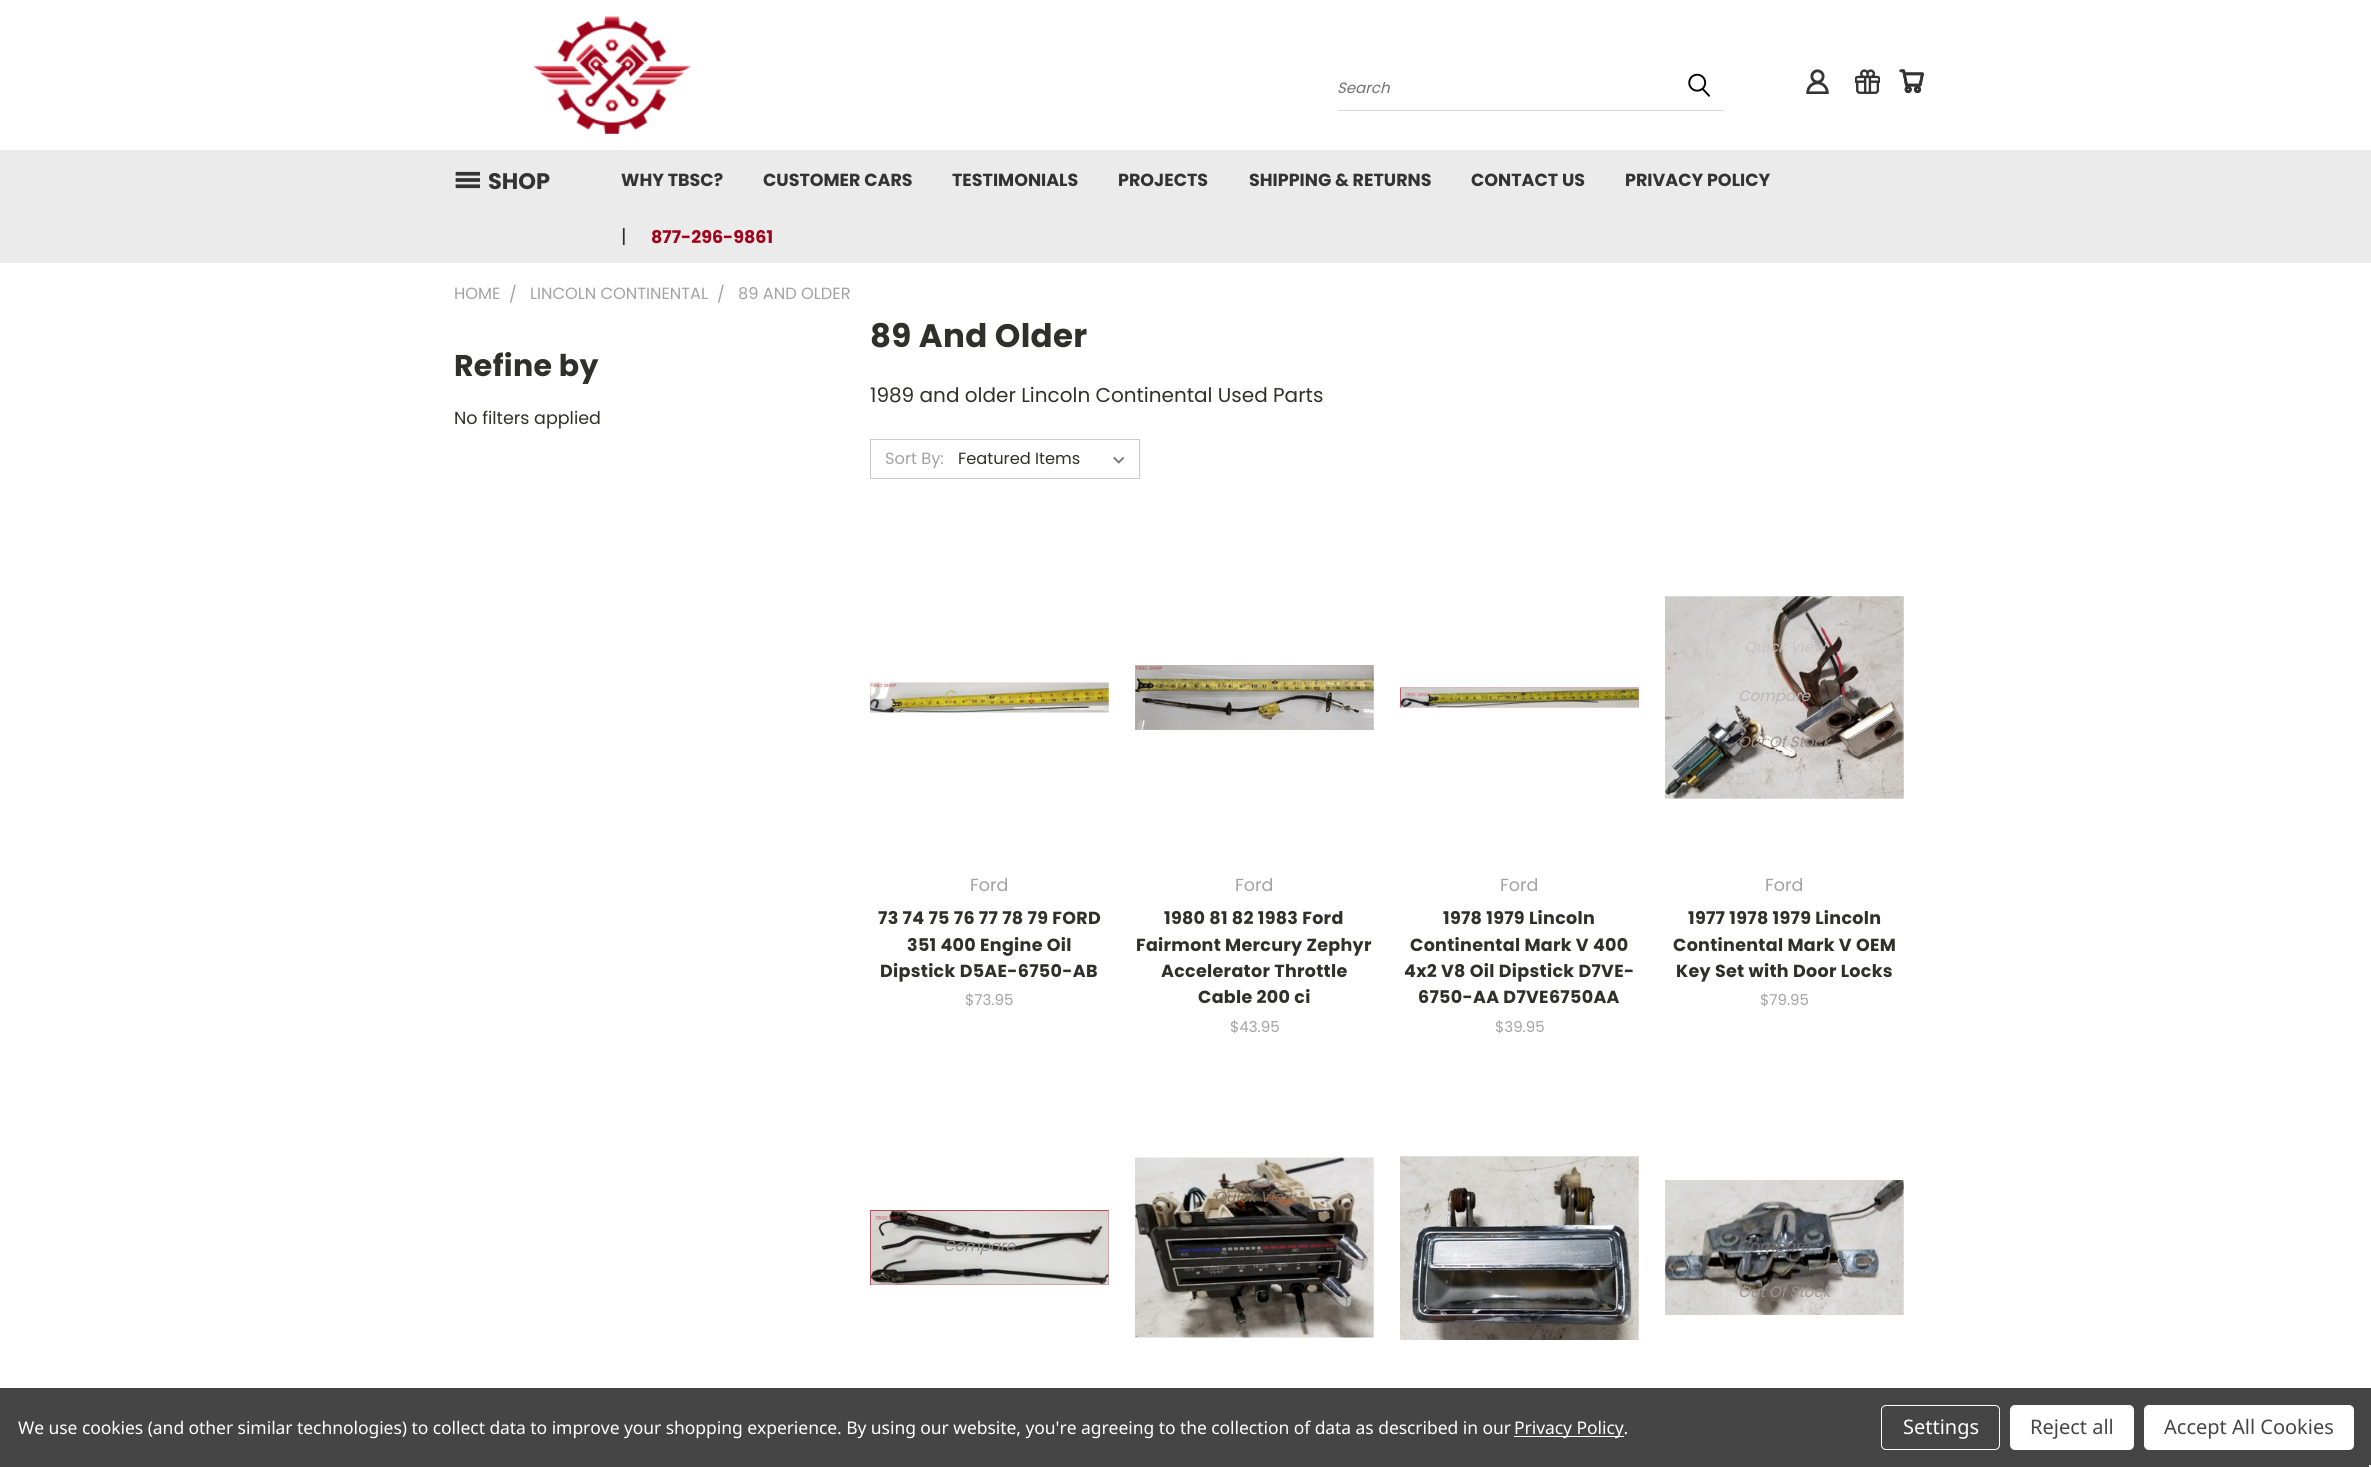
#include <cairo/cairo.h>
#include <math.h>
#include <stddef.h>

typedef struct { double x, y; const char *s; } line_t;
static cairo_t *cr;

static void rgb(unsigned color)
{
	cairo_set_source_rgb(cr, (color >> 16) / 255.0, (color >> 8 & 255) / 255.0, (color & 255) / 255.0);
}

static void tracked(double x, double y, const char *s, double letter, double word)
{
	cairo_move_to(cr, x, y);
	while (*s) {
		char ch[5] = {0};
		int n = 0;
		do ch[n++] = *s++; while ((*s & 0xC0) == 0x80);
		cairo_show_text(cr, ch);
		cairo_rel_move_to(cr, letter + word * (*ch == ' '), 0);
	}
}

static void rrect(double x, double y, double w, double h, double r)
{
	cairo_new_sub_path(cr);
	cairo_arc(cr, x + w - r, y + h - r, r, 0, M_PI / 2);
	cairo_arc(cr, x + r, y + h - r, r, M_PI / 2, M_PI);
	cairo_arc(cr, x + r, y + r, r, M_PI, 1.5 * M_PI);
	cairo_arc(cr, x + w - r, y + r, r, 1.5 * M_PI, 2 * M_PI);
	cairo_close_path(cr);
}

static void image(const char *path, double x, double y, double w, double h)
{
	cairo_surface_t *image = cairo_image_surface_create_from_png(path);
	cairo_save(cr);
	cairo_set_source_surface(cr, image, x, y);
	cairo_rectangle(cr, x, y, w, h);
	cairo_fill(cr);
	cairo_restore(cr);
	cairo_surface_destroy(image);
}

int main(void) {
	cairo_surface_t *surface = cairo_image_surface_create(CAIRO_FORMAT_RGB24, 2371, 1467);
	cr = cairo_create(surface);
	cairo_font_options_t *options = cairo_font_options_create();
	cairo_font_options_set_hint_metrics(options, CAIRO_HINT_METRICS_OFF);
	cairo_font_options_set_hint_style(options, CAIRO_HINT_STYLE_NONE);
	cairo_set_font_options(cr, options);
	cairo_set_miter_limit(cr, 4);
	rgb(0xffffff);
	cairo_paint(cr);
	image("img/1.png", 533, 16, 158, 118);
	rgb(0xd7d7d7);
	cairo_rectangle(cr, 1338, 110, 386, 1);
	cairo_fill(cr);
	image("img/2.png", 1688, 73, 22, 24);
	image("img/3.png", 1806, 69, 23, 25);
	image("img/4.png", 1855, 69, 25, 25);
	image("img/5.png", 1899, 69, 25, 25);
	rgb(0xebebeb);
	cairo_rectangle(cr, 0, 150, 2371, 113);
	cairo_fill(cr);
	image("img/6.png", 455, 171, 25, 18);
	cairo_rectangle(cr, 870.5, 439.5, 269, 39);
	rgb(0xcccccc);
	cairo_set_line_width(cr, 1);
	cairo_stroke(cr);
	image("img/7.png", 1113, 456, 12, 8);
	image("img/8.png", 870, 682, 239, 31);
	image("img/9.png", 1135, 665, 239, 65);
	image("img/10.png", 1400, 687, 239, 21);
	image("img/11.png", 1665, 596, 239, 203);
	image("img/12.png", 1135, 1157, 239, 181);
	image("img/13.png", 1400, 1156, 239, 184);
	image("img/14.png", 870, 1210, 239, 75);
	image("img/15.png", 1665, 1180, 239, 135);
	rgb(0x454545);
	cairo_rectangle(cr, 0, 1388, 2371, 79);
	cairo_fill(cr);
	rgb(0xffffff);
	cairo_rectangle(cr, 1514, 1436, 110, 1);
	cairo_fill(cr);
	rrect(1881.5, 1405.5, 118, 44, 4.5);
	cairo_stroke(cr);
	rrect(2010, 1405, 124, 45, 5);
	cairo_fill(cr);
	rrect(2144, 1405, 210, 45, 5);
	cairo_fill(cr);
	rgb(0xf5f5f5);
	cairo_rectangle(cr, 2369, 1465, 2, 2);
	cairo_fill(cr);
	cairo_select_font_face(cr, "Poppins", CAIRO_FONT_SLANT_ITALIC, CAIRO_FONT_WEIGHT_NORMAL);
	cairo_set_font_size(cr, 15);
	rgb(0x70706e);
	cairo_move_to(cr, 1337, 93);
	cairo_show_text(cr, "Search");
	cairo_select_font_face(cr, "Poppins", CAIRO_FONT_SLANT_NORMAL, CAIRO_FONT_WEIGHT_BOLD);
	cairo_set_font_size(cr, 22.5);
	rgb(0x333333);
	cairo_move_to(cr, 488, 189);
	cairo_show_text(cr, "SHOP");
	cairo_set_font_size(cr, 17.5);
	{
		static const line_t items[] = {
			{621, 186, "WHY TBSC?"},
			{763, 186, "CUSTOMER CARS"},
			{952, 186, "TESTIMONIALS"},
			{1118, 186, "PROJECTS"},
			{1249, 186, "SHIPPING & RETURNS"},
			{1471, 186, "CONTACT US"},
			{1625, 186, "PRIVACY POLICY"},
		};
		for (size_t i = 0; i < sizeof items / sizeof *items; i++) {
			cairo_move_to(cr, items[i].x, items[i].y);
			cairo_show_text(cr, items[i].s);
		}
	}
	cairo_select_font_face(cr, "Poppins", CAIRO_FONT_SLANT_NORMAL, CAIRO_FONT_WEIGHT_NORMAL);
	cairo_set_font_size(cr, 19);
	rgb(0x2f2f2b);
	cairo_move_to(cr, 621, 243);
	cairo_show_text(cr, "|");
	cairo_select_font_face(cr, "Poppins", CAIRO_FONT_SLANT_NORMAL, CAIRO_FONT_WEIGHT_BOLD);
	cairo_set_font_size(cr, 17.5);
	rgb(0x9f041b);
	cairo_move_to(cr, 651, 243);
	cairo_show_text(cr, "877-296-9861");
	cairo_select_font_face(cr, "Poppins", CAIRO_FONT_SLANT_NORMAL, CAIRO_FONT_WEIGHT_NORMAL);
	cairo_set_font_size(cr, 16.25);
	rgb(0xa2a2a2);
	{
		static const line_t items[] = {
			{454, 299, "HOME"},
			{509, 300, "/"},
			{530, 299, "LINCOLN CONTINENTAL"},
			{717, 300, "/"},
			{738, 299, "89 AND OLDER"},
		};
		for (size_t i = 0; i < sizeof items / sizeof *items; i++) {
			cairo_move_to(cr, items[i].x, items[i].y);
			cairo_show_text(cr, items[i].s);
		}
	}
	cairo_select_font_face(cr, "Poppins", CAIRO_FONT_SLANT_NORMAL, CAIRO_FONT_WEIGHT_BOLD);
	cairo_set_font_size(cr, 30);
	rgb(0x2f2f2b);
	tracked(454, 376, "Refine by", 0.3, 0);
	cairo_select_font_face(cr, "Poppins", CAIRO_FONT_SLANT_NORMAL, CAIRO_FONT_WEIGHT_NORMAL);
	cairo_set_font_size(cr, 17.5);
	cairo_move_to(cr, 454, 424);
	cairo_show_text(cr, "No filters applied");
	cairo_select_font_face(cr, "Poppins", CAIRO_FONT_SLANT_NORMAL, CAIRO_FONT_WEIGHT_BOLD);
	cairo_set_font_size(cr, 32.5);
	tracked(870, 347, "89 And Older", 0.3, 0);
	cairo_select_font_face(cr, "Poppins", CAIRO_FONT_SLANT_NORMAL, CAIRO_FONT_WEIGHT_NORMAL);
	cairo_set_font_size(cr, 20);
	cairo_move_to(cr, 870, 402);
	cairo_show_text(cr, "1989 and older Lincoln Continental Used Parts");
	cairo_set_font_size(cr, 16.25);
	rgb(0xa2a2a2);
	cairo_move_to(cr, 885, 464);
	cairo_show_text(cr, "Sort By:");
	rgb(0x2f2f2b);
	cairo_move_to(cr, 958, 464);
	cairo_show_text(cr, "Featured Items");
	cairo_select_font_face(cr, "Poppins", CAIRO_FONT_SLANT_ITALIC, CAIRO_FONT_WEIGHT_NORMAL);
	cairo_set_font_size(cr, 15);
	rgb(0xc2b564);
	cairo_move_to(cr, 943, 701);
	cairo_show_text(cr, "C");
	cairo_select_font_face(cr, "Poppins", CAIRO_FONT_SLANT_NORMAL, CAIRO_FONT_WEIGHT_NORMAL);
	cairo_set_font_size(cr, 17.5);
	rgb(0xa2a2a2);
	cairo_move_to(cr, 970, 891);
	cairo_show_text(cr, "Ford");
	cairo_select_font_face(cr, "Poppins", CAIRO_FONT_SLANT_NORMAL, CAIRO_FONT_WEIGHT_BOLD);
	rgb(0x2f2f2b);
	{
		static const line_t items[] = {
			{878, 924, "73 74 75 76 77 78 79 FORD"},
			{907, 951, "351 400 Engine Oil"},
			{880, 977, "Dipstick D5AE-6750-AB"},
		};
		for (size_t i = 0; i < sizeof items / sizeof *items; i++) {
			tracked(items[i].x, items[i].y, items[i].s, 0.3, 0);
		}
	}
	cairo_select_font_face(cr, "Poppins", CAIRO_FONT_SLANT_NORMAL, CAIRO_FONT_WEIGHT_NORMAL);
	cairo_set_font_size(cr, 15);
	rgb(0xa2a2a2);
	cairo_move_to(cr, 965, 1005);
	cairo_show_text(cr, "$73.95");
	cairo_set_font_size(cr, 17.5);
	cairo_move_to(cr, 1235, 891);
	cairo_show_text(cr, "Ford");
	cairo_select_font_face(cr, "Poppins", CAIRO_FONT_SLANT_NORMAL, CAIRO_FONT_WEIGHT_BOLD);
	rgb(0x2f2f2b);
	{
		static const line_t items[] = {
			{1164, 924, "1980 81 82 1983 Ford"},
			{1136, 951, "Fairmont Mercury Zephyr"},
			{1161, 977, "Accelerator Throttle"},
			{1198, 1003, "Cable 200 ci"},
		};
		for (size_t i = 0; i < sizeof items / sizeof *items; i++) {
			tracked(items[i].x, items[i].y, items[i].s, 0.3, 0);
		}
	}
	cairo_select_font_face(cr, "Poppins", CAIRO_FONT_SLANT_NORMAL, CAIRO_FONT_WEIGHT_NORMAL);
	cairo_set_font_size(cr, 15);
	rgb(0xa2a2a2);
	cairo_move_to(cr, 1230, 1032);
	cairo_show_text(cr, "$43.95");
	cairo_set_font_size(cr, 17.5);
	cairo_move_to(cr, 1500, 891);
	cairo_show_text(cr, "Ford");
	cairo_select_font_face(cr, "Poppins", CAIRO_FONT_SLANT_NORMAL, CAIRO_FONT_WEIGHT_BOLD);
	rgb(0x2f2f2b);
	{
		static const line_t items[] = {
			{1443, 924, "1978 1979 Lincoln"},
			{1410, 951, "Continental Mark V 400"},
			{1404, 977, "4x2 V8 Oil Dipstick D7VE-"},
			{1418, 1003, "6750-AA D7VE6750AA"},
		};
		for (size_t i = 0; i < sizeof items / sizeof *items; i++) {
			tracked(items[i].x, items[i].y, items[i].s, 0.3, 0);
		}
	}
	cairo_select_font_face(cr, "Poppins", CAIRO_FONT_SLANT_NORMAL, CAIRO_FONT_WEIGHT_NORMAL);
	cairo_set_font_size(cr, 15);
	rgb(0xa2a2a2);
	cairo_move_to(cr, 1495, 1032);
	cairo_show_text(cr, "$39.95");
	cairo_select_font_face(cr, "Poppins", CAIRO_FONT_SLANT_ITALIC, CAIRO_FONT_WEIGHT_NORMAL);
	rgb(0xc5c2be);
	cairo_move_to(cr, 1744, 652);
	cairo_show_text(cr, "Quick View");
	rgb(0xbbb4b1);
	cairo_move_to(cr, 1738, 701);
	cairo_show_text(cr, "Compare");
	rgb(0x98908a);
	cairo_move_to(cr, 1738, 747);
	cairo_show_text(cr, "Out Of Stock");
	cairo_select_font_face(cr, "Poppins", CAIRO_FONT_SLANT_NORMAL, CAIRO_FONT_WEIGHT_NORMAL);
	cairo_set_font_size(cr, 17.5);
	rgb(0xa2a2a2);
	cairo_move_to(cr, 1765, 891);
	cairo_show_text(cr, "Ford");
	cairo_select_font_face(cr, "Poppins", CAIRO_FONT_SLANT_NORMAL, CAIRO_FONT_WEIGHT_BOLD);
	rgb(0x2f2f2b);
	{
		static const line_t items[] = {
			{1688, 924, "1977 1978 1979 Lincoln"},
			{1673, 951, "Continental Mark V OEM"},
			{1676, 977, "Key Set with Door Locks"},
		};
		for (size_t i = 0; i < sizeof items / sizeof *items; i++) {
			tracked(items[i].x, items[i].y, items[i].s, 0.3, 0);
		}
	}
	cairo_select_font_face(cr, "Poppins", CAIRO_FONT_SLANT_NORMAL, CAIRO_FONT_WEIGHT_NORMAL);
	cairo_set_font_size(cr, 15);
	rgb(0xa2a2a2);
	cairo_move_to(cr, 1760, 1005);
	cairo_show_text(cr, "$79.95");
	cairo_select_font_face(cr, "Poppins", CAIRO_FONT_SLANT_ITALIC, CAIRO_FONT_WEIGHT_NORMAL);
	rgb(0x83715f);
	cairo_move_to(cr, 1214, 1202);
	cairo_show_text(cr, "Quick View");
	rgb(0x8e8e8c);
	cairo_move_to(cr, 943, 1251);
	cairo_show_text(cr, "Compare");
	rgb(0x6d6f74);
	cairo_move_to(cr, 1738, 1251);
	cairo_show_text(cr, "Compare");
	rgb(0x9c9690);
	cairo_move_to(cr, 1738, 1297);
	cairo_show_text(cr, "Out Of Stock");
	cairo_select_font_face(cr, "Noto Sans", CAIRO_FONT_SLANT_NORMAL, CAIRO_FONT_WEIGHT_NORMAL);
	cairo_set_font_size(cr, 17.5);
	rgb(0xffffff);
	tracked(18, 1434, "We use cookies (and other similar technologies) to collect data to improve your shopping experience. By using our website, you're agreeing to the collection of data as described in our", -0.06, 0);
	tracked(1514, 1434, "Privacy Policy.", -0.06, 0);
	cairo_set_font_size(cr, 20);
	cairo_move_to(cr, 1903, 1434);
	cairo_show_text(cr, "Settings");
	rgb(0x454545);
	cairo_move_to(cr, 2030, 1434);
	cairo_show_text(cr, "Reject all");
	cairo_move_to(cr, 2164, 1434);
	cairo_show_text(cr, "Accept All Cookies");
	cairo_surface_write_to_png(surface, "page.png");
	cairo_font_options_destroy(options);
	cairo_destroy(cr);
	cairo_surface_destroy(surface);
	return 0;
}
